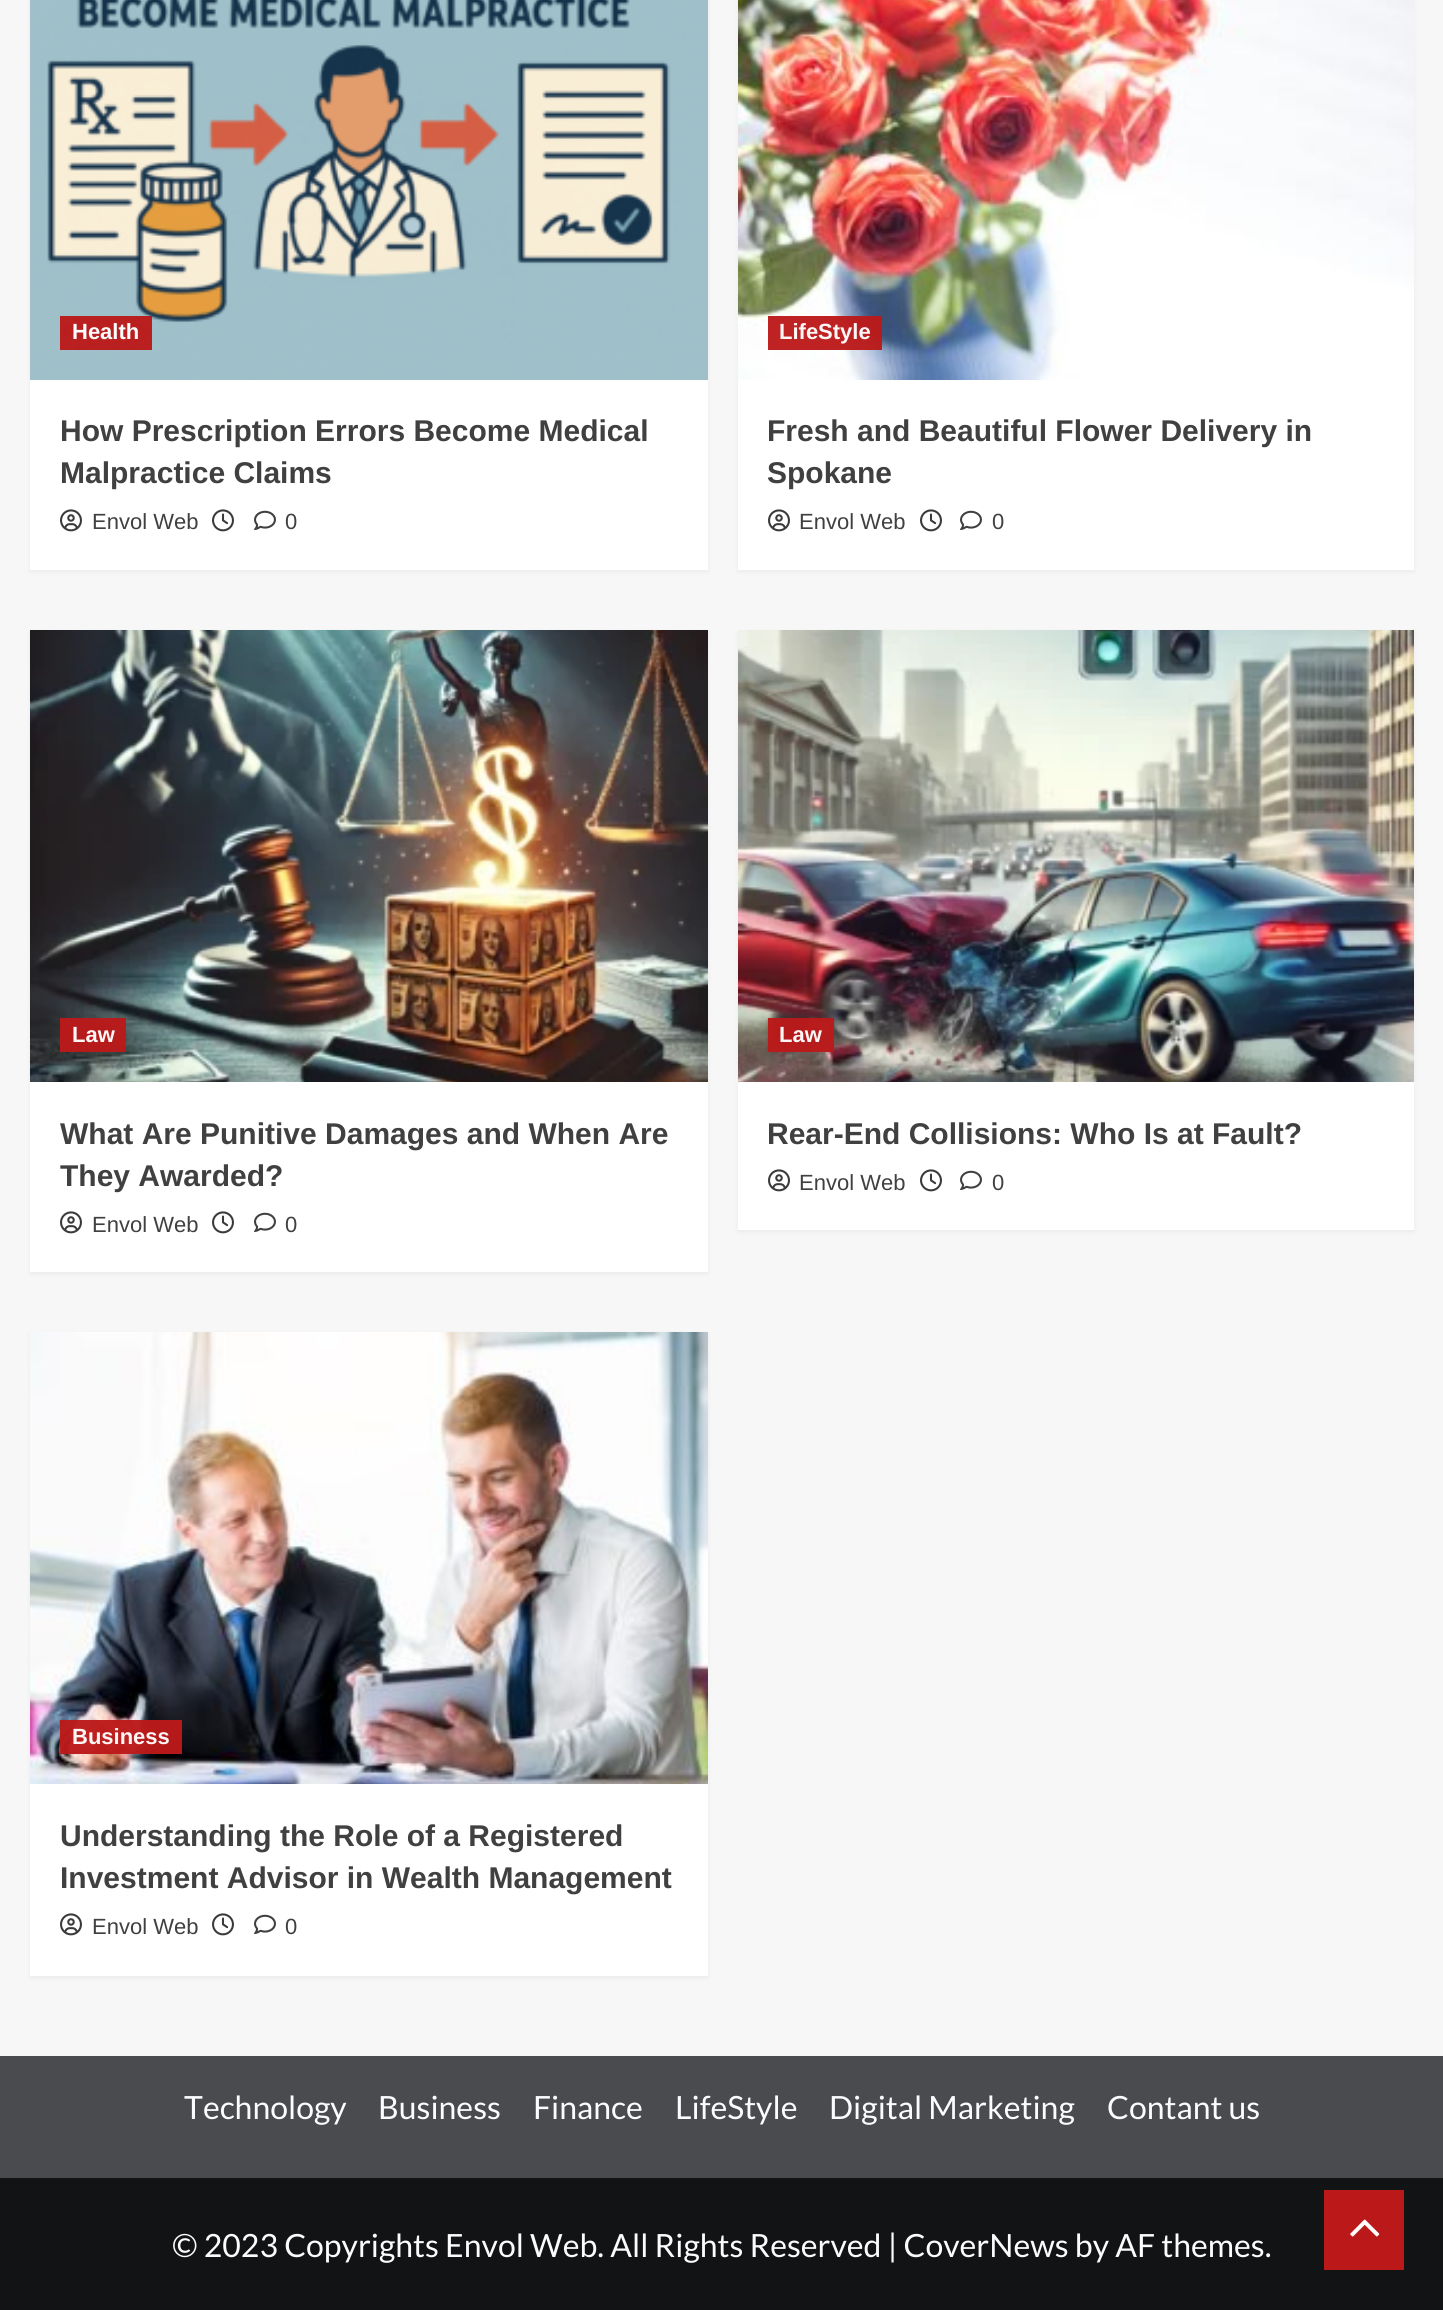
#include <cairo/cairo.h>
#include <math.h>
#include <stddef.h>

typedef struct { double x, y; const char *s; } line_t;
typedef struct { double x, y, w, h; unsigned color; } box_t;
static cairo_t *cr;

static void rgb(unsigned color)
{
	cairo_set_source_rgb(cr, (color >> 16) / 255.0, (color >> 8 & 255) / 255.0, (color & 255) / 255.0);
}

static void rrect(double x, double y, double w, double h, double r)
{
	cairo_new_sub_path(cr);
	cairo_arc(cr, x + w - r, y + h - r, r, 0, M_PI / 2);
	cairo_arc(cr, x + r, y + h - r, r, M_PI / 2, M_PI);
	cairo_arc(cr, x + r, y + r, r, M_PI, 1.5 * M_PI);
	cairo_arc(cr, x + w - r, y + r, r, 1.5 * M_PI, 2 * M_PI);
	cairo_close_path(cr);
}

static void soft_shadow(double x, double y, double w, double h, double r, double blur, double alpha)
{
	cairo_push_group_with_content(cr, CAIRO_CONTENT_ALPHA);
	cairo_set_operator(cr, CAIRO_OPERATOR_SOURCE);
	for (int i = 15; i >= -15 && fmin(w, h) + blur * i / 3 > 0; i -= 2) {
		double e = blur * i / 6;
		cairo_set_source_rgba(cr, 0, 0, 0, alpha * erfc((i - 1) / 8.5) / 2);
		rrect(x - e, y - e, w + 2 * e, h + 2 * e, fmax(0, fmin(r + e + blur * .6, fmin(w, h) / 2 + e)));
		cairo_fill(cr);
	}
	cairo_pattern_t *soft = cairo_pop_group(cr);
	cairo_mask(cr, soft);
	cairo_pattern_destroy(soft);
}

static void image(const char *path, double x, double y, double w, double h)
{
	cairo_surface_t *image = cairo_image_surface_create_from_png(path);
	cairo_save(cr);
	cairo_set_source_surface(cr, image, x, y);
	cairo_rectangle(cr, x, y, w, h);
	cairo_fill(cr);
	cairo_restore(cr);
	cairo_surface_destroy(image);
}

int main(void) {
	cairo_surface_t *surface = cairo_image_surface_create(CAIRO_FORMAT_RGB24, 1443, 2310);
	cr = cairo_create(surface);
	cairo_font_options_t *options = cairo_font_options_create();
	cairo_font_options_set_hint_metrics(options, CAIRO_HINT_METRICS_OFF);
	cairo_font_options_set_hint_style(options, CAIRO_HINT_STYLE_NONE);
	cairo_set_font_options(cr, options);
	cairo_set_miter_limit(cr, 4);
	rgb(0xf7f7f7);
	cairo_paint(cr);
	rgb(0x000000);
	soft_shadow(30, -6, 678, 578, 0, 2, 0.05);
	rgb(0xffffff);
	cairo_rectangle(cr, 30, 380, 678, 190);
	cairo_fill(cr);
	image("img/1.png", 30, 0, 678, 380);
	cairo_set_source_rgba(cr, 0.733, 0.098, 0.098, 0.96);
	cairo_rectangle(cr, 60, 316, 92, 34);
	cairo_fill(cr);
	image("img/2.png", 60, 509, 22, 23);
	image("img/3.png", 212, 509, 22, 23);
	image("img/4.png", 254, 510, 22, 20);
	rgb(0x000000);
	soft_shadow(738, -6, 676, 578, 0, 2, 0.05);
	rgb(0xffffff);
	cairo_rectangle(cr, 738, 380, 676, 190);
	cairo_fill(cr);
	image("img/5.png", 738, 0, 676, 380);
	cairo_set_source_rgba(cr, 0.733, 0.098, 0.098, 0.96);
	cairo_rectangle(cr, 768, 316, 114, 34);
	cairo_fill(cr);
	image("img/2.png", 768, 509, 22, 23);
	image("img/3.png", 920, 509, 22, 23);
	image("img/4.png", 960, 510, 22, 20);
	rgb(0x000000);
	soft_shadow(30, 632, 678, 642, 0, 2, 0.05);
	rgb(0xffffff);
	cairo_rectangle(cr, 30, 1082, 678, 190);
	cairo_fill(cr);
	image("img/6.png", 30, 630, 678, 452);
	cairo_set_source_rgba(cr, 0.733, 0.098, 0.098, 0.96);
	cairo_rectangle(cr, 60, 1018, 66, 34);
	cairo_fill(cr);
	image("img/2.png", 60, 1211, 22, 23);
	image("img/3.png", 212, 1211, 22, 23);
	image("img/4.png", 254, 1212, 22, 20);
	rgb(0x000000);
	soft_shadow(738, 632, 676, 600, 0, 2, 0.05);
	rgb(0xffffff);
	cairo_rectangle(cr, 738, 1082, 676, 148);
	cairo_fill(cr);
	image("img/7.png", 738, 630, 676, 452);
	cairo_set_source_rgba(cr, 0.733, 0.098, 0.098, 0.96);
	cairo_rectangle(cr, 768, 1018, 66, 34);
	cairo_fill(cr);
	image("img/2.png", 768, 1169, 22, 23);
	image("img/3.png", 920, 1169, 22, 23);
	image("img/4.png", 960, 1170, 22, 20);
	rgb(0x000000);
	soft_shadow(30, 1334, 678, 644, 0, 2, 0.05);
	rgb(0xffffff);
	cairo_rectangle(cr, 30, 1784, 678, 192);
	cairo_fill(cr);
	image("img/8.png", 30, 1332, 678, 452);
	cairo_set_source_rgba(cr, 0.733, 0.098, 0.098, 0.96);
	cairo_rectangle(cr, 60, 1720, 122, 34);
	cairo_fill(cr);
	image("img/2.png", 60, 1913, 22, 23);
	image("img/3.png", 212, 1913, 22, 23);
	image("img/4.png", 254, 1914, 22, 20);
	{
		static const box_t items[] = {
			{0, 2056, 1443, 122, 0x494b4e},
			{0, 2178, 1443, 132, 0x121314},
			{1324, 2190, 80, 80, 0xbb1919},
		};
		for (size_t i = 0; i < sizeof items / sizeof *items; i++) {
			rgb(items[i].color);
			cairo_rectangle(cr, items[i].x, items[i].y, items[i].w, items[i].h);
			cairo_fill(cr);
		}
	}
	image("img/9.png", 1350, 2219, 30, 18);
	cairo_select_font_face(cr, "Liberation Sans", CAIRO_FONT_SLANT_NORMAL, CAIRO_FONT_WEIGHT_BOLD);
	cairo_set_font_size(cr, 22);
	rgb(0xfbfcfd);
	cairo_move_to(cr, 72, 339);
	cairo_show_text(cr, "Health");
	cairo_set_font_size(cr, 30);
	rgb(0x404040);
	cairo_move_to(cr, 60, 441);
	cairo_show_text(cr, "How Prescription Errors Become Medical");
	cairo_move_to(cr, 60, 483);
	cairo_show_text(cr, "Malpractice Claims");
	cairo_select_font_face(cr, "Liberation Sans", CAIRO_FONT_SLANT_NORMAL, CAIRO_FONT_WEIGHT_NORMAL);
	cairo_set_font_size(cr, 22);
	cairo_move_to(cr, 92, 529);
	cairo_show_text(cr, "Envol Web");
	cairo_move_to(cr, 285, 529);
	cairo_show_text(cr, "0");
	cairo_select_font_face(cr, "Liberation Sans", CAIRO_FONT_SLANT_NORMAL, CAIRO_FONT_WEIGHT_BOLD);
	rgb(0xfcf6f6);
	cairo_move_to(cr, 779, 339);
	cairo_show_text(cr, "LifeStyle");
	cairo_set_font_size(cr, 30);
	rgb(0x404040);
	cairo_move_to(cr, 767, 441);
	cairo_show_text(cr, "Fresh and Beautiful Flower Delivery in");
	cairo_move_to(cr, 767, 483);
	cairo_show_text(cr, "Spokane");
	cairo_select_font_face(cr, "Liberation Sans", CAIRO_FONT_SLANT_NORMAL, CAIRO_FONT_WEIGHT_NORMAL);
	cairo_set_font_size(cr, 22);
	cairo_move_to(cr, 799, 529);
	cairo_show_text(cr, "Envol Web");
	cairo_move_to(cr, 992, 529);
	cairo_show_text(cr, "0");
	cairo_select_font_face(cr, "Liberation Sans", CAIRO_FONT_SLANT_NORMAL, CAIRO_FONT_WEIGHT_BOLD);
	rgb(0xfcf6f6);
	cairo_move_to(cr, 72, 1042);
	cairo_show_text(cr, "Law");
	cairo_set_font_size(cr, 30);
	rgb(0x404040);
	cairo_move_to(cr, 60, 1144);
	cairo_show_text(cr, "What Are Punitive Damages and When Are");
	cairo_move_to(cr, 60, 1186);
	cairo_show_text(cr, "They Awarded?");
	cairo_select_font_face(cr, "Liberation Sans", CAIRO_FONT_SLANT_NORMAL, CAIRO_FONT_WEIGHT_NORMAL);
	cairo_set_font_size(cr, 22);
	cairo_move_to(cr, 92, 1232);
	cairo_show_text(cr, "Envol Web");
	cairo_move_to(cr, 285, 1232);
	cairo_show_text(cr, "0");
	cairo_select_font_face(cr, "Liberation Sans", CAIRO_FONT_SLANT_NORMAL, CAIRO_FONT_WEIGHT_BOLD);
	rgb(0xfcf6f6);
	cairo_move_to(cr, 779, 1042);
	cairo_show_text(cr, "Law");
	cairo_set_font_size(cr, 30);
	rgb(0x404040);
	cairo_move_to(cr, 767, 1144);
	cairo_show_text(cr, "Rear-End Collisions: Who Is at Fault?");
	cairo_select_font_face(cr, "Liberation Sans", CAIRO_FONT_SLANT_NORMAL, CAIRO_FONT_WEIGHT_NORMAL);
	cairo_set_font_size(cr, 22);
	cairo_move_to(cr, 799, 1190);
	cairo_show_text(cr, "Envol Web");
	cairo_move_to(cr, 992, 1190);
	cairo_show_text(cr, "0");
	cairo_select_font_face(cr, "Liberation Sans", CAIRO_FONT_SLANT_NORMAL, CAIRO_FONT_WEIGHT_BOLD);
	rgb(0xfcf6f6);
	cairo_move_to(cr, 72, 1744);
	cairo_show_text(cr, "Business");
	cairo_set_font_size(cr, 30);
	rgb(0x404040);
	cairo_move_to(cr, 60, 1846);
	cairo_show_text(cr, "Understanding the Role of a Registered");
	cairo_move_to(cr, 60, 1888);
	cairo_show_text(cr, "Investment Advisor in Wealth Management");
	cairo_select_font_face(cr, "Liberation Sans", CAIRO_FONT_SLANT_NORMAL, CAIRO_FONT_WEIGHT_NORMAL);
	cairo_set_font_size(cr, 22);
	cairo_move_to(cr, 92, 1934);
	cairo_show_text(cr, "Envol Web");
	cairo_move_to(cr, 285, 1934);
	cairo_show_text(cr, "0");
	cairo_select_font_face(cr, "Lato", CAIRO_FONT_SLANT_NORMAL, CAIRO_FONT_WEIGHT_NORMAL);
	cairo_set_font_size(cr, 32);
	rgb(0xfbfcfd);
	{
		static const line_t items[] = {
			{184, 2119, "Technology"},
			{378, 2119, "Business"},
			{533, 2119, "Finance"},
			{675, 2119, "LifeStyle"},
			{829, 2119, "Digital Marketing"},
			{1107, 2119, "Contant us"},
			{172, 2257, "© 2023 Copyrights Envol Web. All Rights Reserved | CoverNews by AF themes."},
		};
		for (size_t i = 0; i < sizeof items / sizeof *items; i++) {
			cairo_move_to(cr, items[i].x, items[i].y);
			cairo_show_text(cr, items[i].s);
		}
	}
	cairo_surface_write_to_png(surface, "page.png");
	cairo_font_options_destroy(options);
	cairo_destroy(cr);
	cairo_surface_destroy(surface);
	return 0;
}
